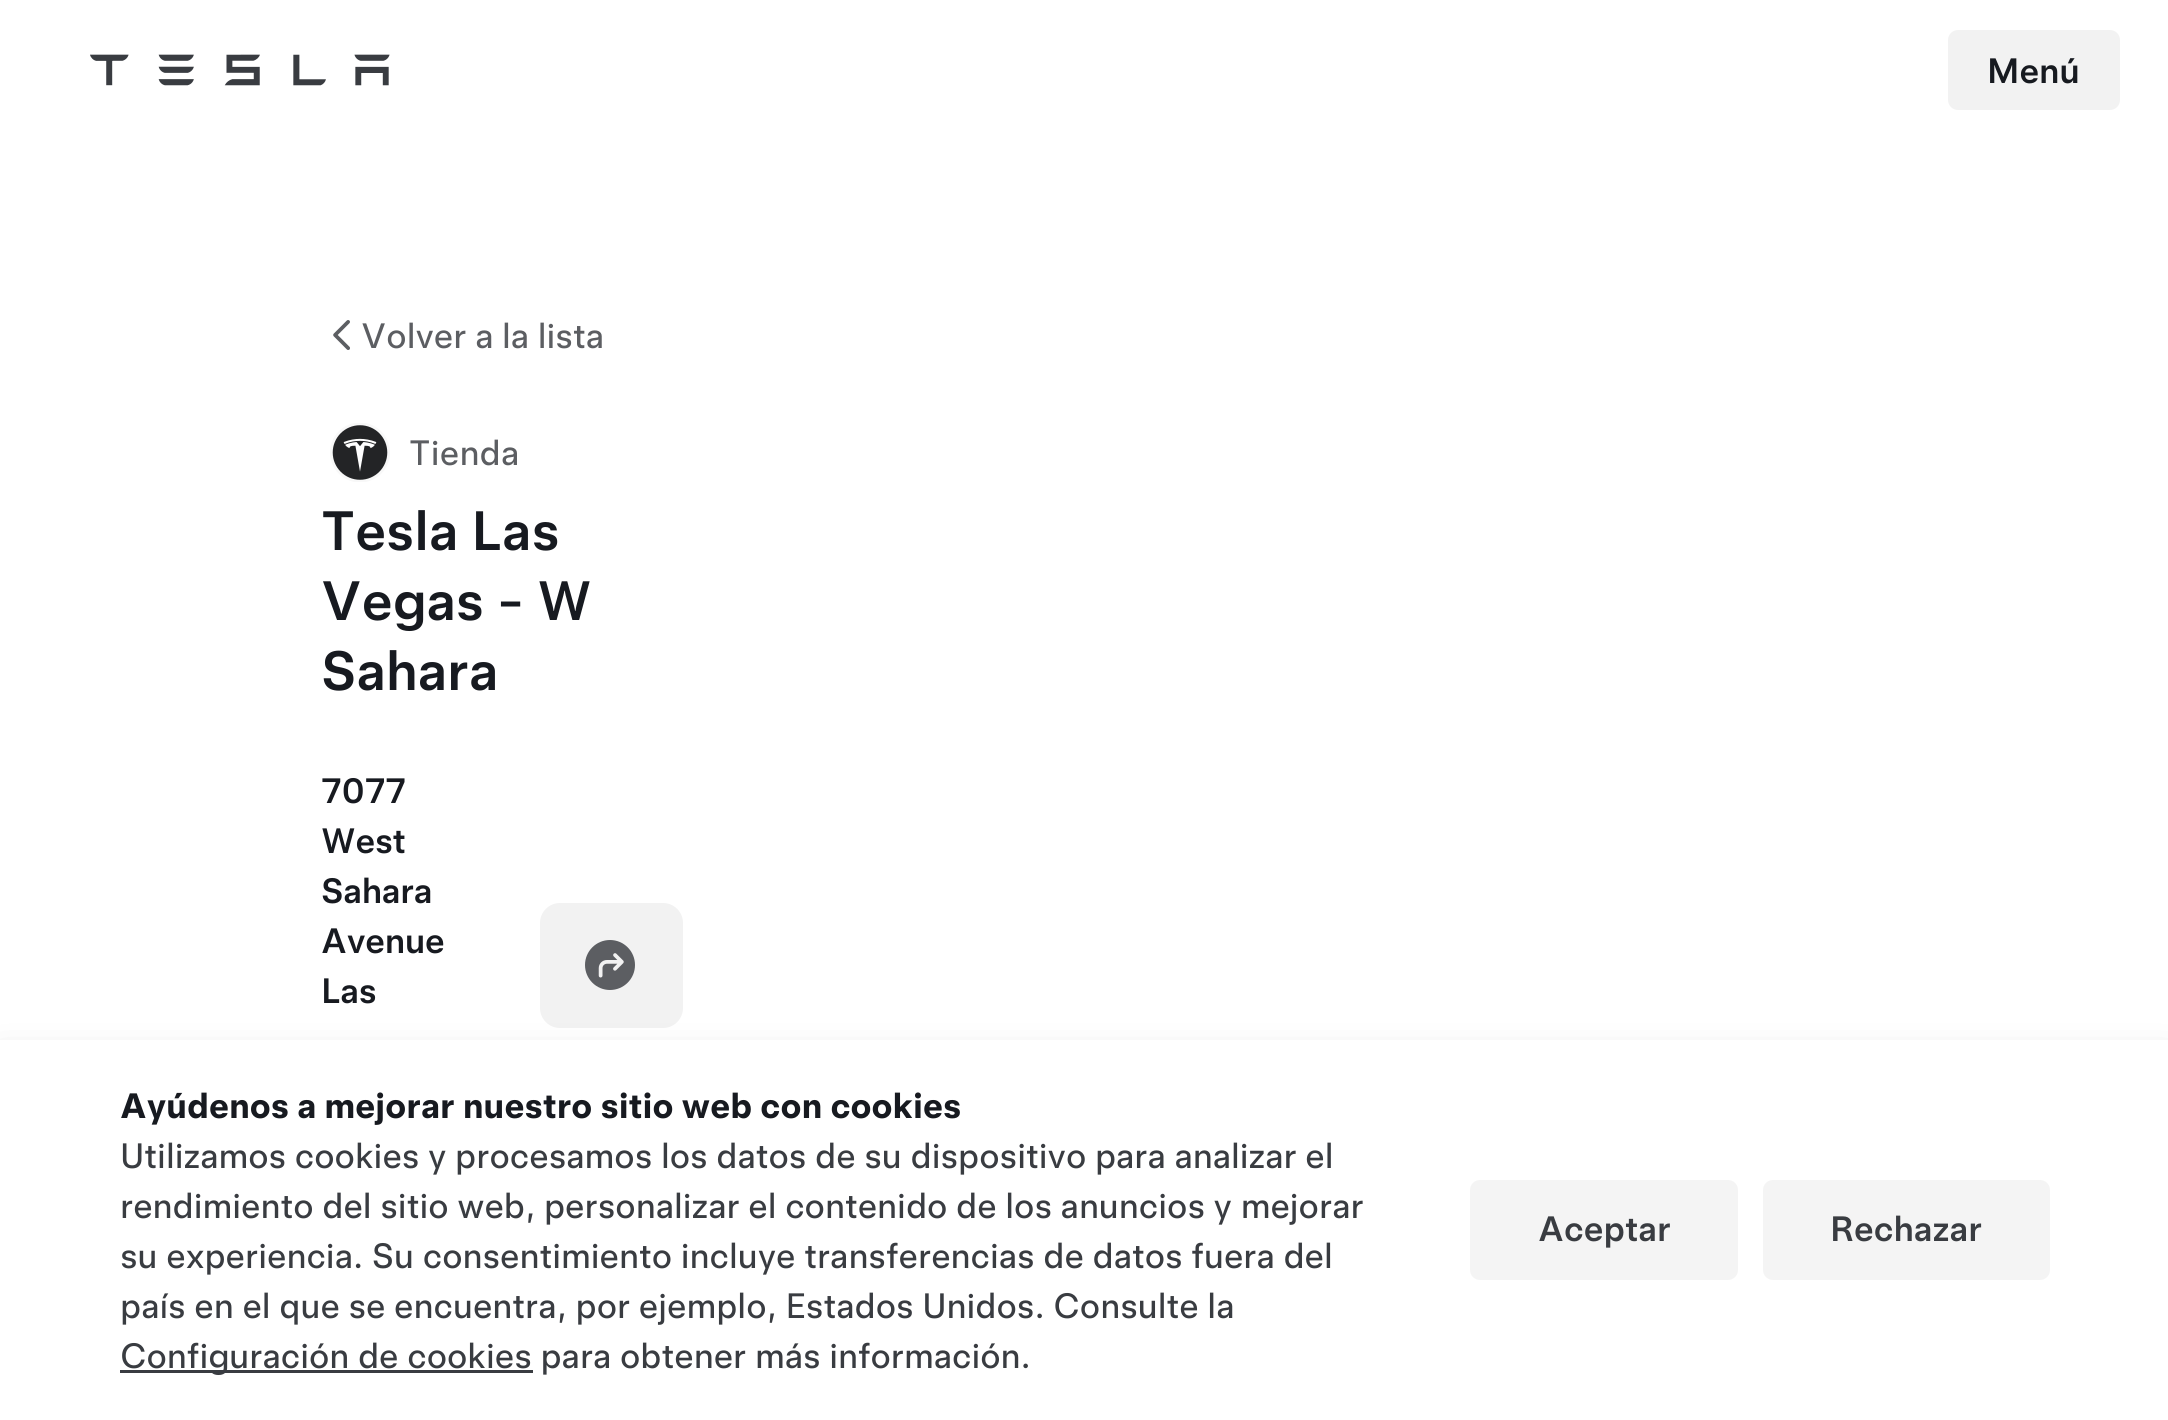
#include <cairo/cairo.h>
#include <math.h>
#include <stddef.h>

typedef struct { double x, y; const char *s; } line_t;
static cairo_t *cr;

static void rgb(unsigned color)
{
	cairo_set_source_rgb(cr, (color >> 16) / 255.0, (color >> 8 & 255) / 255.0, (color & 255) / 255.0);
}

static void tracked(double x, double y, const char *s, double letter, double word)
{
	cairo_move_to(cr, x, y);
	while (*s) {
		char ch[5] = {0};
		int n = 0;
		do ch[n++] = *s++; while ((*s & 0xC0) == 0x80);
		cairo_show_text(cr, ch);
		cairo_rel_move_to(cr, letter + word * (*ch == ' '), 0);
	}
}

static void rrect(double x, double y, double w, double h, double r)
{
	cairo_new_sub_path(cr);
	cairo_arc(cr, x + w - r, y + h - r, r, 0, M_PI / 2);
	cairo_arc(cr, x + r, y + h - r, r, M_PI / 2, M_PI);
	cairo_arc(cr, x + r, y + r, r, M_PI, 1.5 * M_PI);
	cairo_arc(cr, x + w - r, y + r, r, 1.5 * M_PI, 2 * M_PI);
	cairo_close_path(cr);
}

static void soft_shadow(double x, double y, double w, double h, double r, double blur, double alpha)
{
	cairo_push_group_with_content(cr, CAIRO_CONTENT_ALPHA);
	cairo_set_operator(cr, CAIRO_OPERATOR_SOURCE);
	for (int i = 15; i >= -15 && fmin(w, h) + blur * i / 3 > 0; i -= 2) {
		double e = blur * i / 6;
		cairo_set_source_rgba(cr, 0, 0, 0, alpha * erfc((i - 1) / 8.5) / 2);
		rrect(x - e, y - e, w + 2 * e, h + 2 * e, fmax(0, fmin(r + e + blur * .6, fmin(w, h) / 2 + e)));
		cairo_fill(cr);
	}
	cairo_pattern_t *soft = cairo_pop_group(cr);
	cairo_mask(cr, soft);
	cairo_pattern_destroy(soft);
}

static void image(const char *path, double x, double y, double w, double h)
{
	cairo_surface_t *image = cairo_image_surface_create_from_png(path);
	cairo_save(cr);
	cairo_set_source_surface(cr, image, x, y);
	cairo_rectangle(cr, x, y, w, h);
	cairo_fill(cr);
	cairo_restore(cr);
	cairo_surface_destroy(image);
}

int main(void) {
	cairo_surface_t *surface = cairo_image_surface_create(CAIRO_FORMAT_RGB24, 2168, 1420);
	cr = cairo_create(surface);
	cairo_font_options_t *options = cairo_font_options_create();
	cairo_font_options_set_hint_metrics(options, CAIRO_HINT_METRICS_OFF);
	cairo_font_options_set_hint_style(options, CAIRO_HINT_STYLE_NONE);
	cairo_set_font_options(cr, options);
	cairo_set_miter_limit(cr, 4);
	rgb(0xffffff);
	cairo_paint(cr);
	image("img/1.png", 90, 54, 300, 32);
	rgb(0xf2f2f2);
	rrect(1948, 30, 172, 80, 10);
	cairo_fill(cr);
	image("img/2.png", 333, 320, 17, 30);
	image("img/3.png", 330, 423, 60, 59);
	rrect(540, 903, 143, 125, 20);
	cairo_fill(cr);
	image("img/4.png", 585, 940, 50, 50);
	rgb(0x000000);
	soft_shadow(0, 1060, 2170, 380, 0, 20, 0.16);
	rgb(0xffffff);
	cairo_rectangle(cr, 0, 1040, 2168, 380);
	cairo_fill(cr);
	rgb(0x393c41);
	cairo_rectangle(cr, 120, 1370, 413, 3);
	cairo_fill(cr);
	rgb(0xf4f4f4);
	rrect(1470, 1180, 268, 100, 10);
	cairo_fill(cr);
	rrect(1763, 1180, 287, 100, 10);
	cairo_fill(cr);
	cairo_select_font_face(cr, "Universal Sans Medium", CAIRO_FONT_SLANT_NORMAL, CAIRO_FONT_WEIGHT_NORMAL);
	cairo_set_font_size(cr, 35);
	rgb(0x171a20);
	cairo_move_to(cr, 1987, 83);
	cairo_show_text(cr, "Menú");
	cairo_select_font_face(cr, "Universal Sans", CAIRO_FONT_SLANT_NORMAL, CAIRO_FONT_WEIGHT_NORMAL);
	rgb(0x5c5e62);
	cairo_move_to(cr, 361, 348);
	cairo_show_text(cr, "Volver a la lista");
	tracked(409, 465, "Tienda", 0.25, 0);
	cairo_select_font_face(cr, "Universal Sans Medium", CAIRO_FONT_SLANT_NORMAL, CAIRO_FONT_WEIGHT_NORMAL);
	cairo_set_font_size(cr, 55);
	rgb(0x171a20);
	{
		static const line_t items[] = {
			{321, 550, "Tesla Las"},
			{321, 620, "Vegas - W"},
			{321, 690, "Sahara"},
		};
		for (size_t i = 0; i < sizeof items / sizeof *items; i++) {
			cairo_move_to(cr, items[i].x, items[i].y);
			cairo_show_text(cr, items[i].s);
		}
	}
	cairo_set_font_size(cr, 35);
	{
		static const line_t items[] = {
			{321, 803, "7077"},
			{321, 853, "West"},
			{321, 903, "Sahara"},
			{321, 953, "Avenue"},
			{321, 1003, "Las"},
		};
		for (size_t i = 0; i < sizeof items / sizeof *items; i++) {
			tracked(items[i].x, items[i].y, items[i].s, -0.25, 0);
		}
	}
	cairo_select_font_face(cr, "Universal Sans", CAIRO_FONT_SLANT_NORMAL, CAIRO_FONT_WEIGHT_BOLD);
	cairo_move_to(cr, 120, 1118);
	cairo_show_text(cr, "Ayúdenos a mejorar nuestro sitio web con cookies");
	cairo_select_font_face(cr, "Universal Sans", CAIRO_FONT_SLANT_NORMAL, CAIRO_FONT_WEIGHT_NORMAL);
	rgb(0x393c41);
	{
		static const line_t items[] = {
			{120, 1168, "Utilizamos cookies y procesamos los datos de su dispositivo para analizar el"},
			{120, 1218, "rendimiento del sitio web, personalizar el contenido de los anuncios y mejorar"},
			{120, 1268, "su experiencia. Su consentimiento incluye transferencias de datos fuera del"},
			{120, 1318, "país en el que se encuentra, por ejemplo, Estados Unidos. Consulte la"},
			{120, 1368, "Configuración de cookies para obtener más información."},
		};
		for (size_t i = 0; i < sizeof items / sizeof *items; i++) {
			cairo_move_to(cr, items[i].x, items[i].y);
			cairo_show_text(cr, items[i].s);
		}
	}
	cairo_select_font_face(cr, "Universal Sans Medium", CAIRO_FONT_SLANT_NORMAL, CAIRO_FONT_WEIGHT_NORMAL);
	cairo_move_to(cr, 1538, 1241);
	cairo_show_text(cr, "Aceptar");
	cairo_move_to(cr, 1830, 1241);
	cairo_show_text(cr, "Rechazar");
	cairo_surface_write_to_png(surface, "page.png");
	cairo_font_options_destroy(options);
	cairo_destroy(cr);
	cairo_surface_destroy(surface);
	return 0;
}
